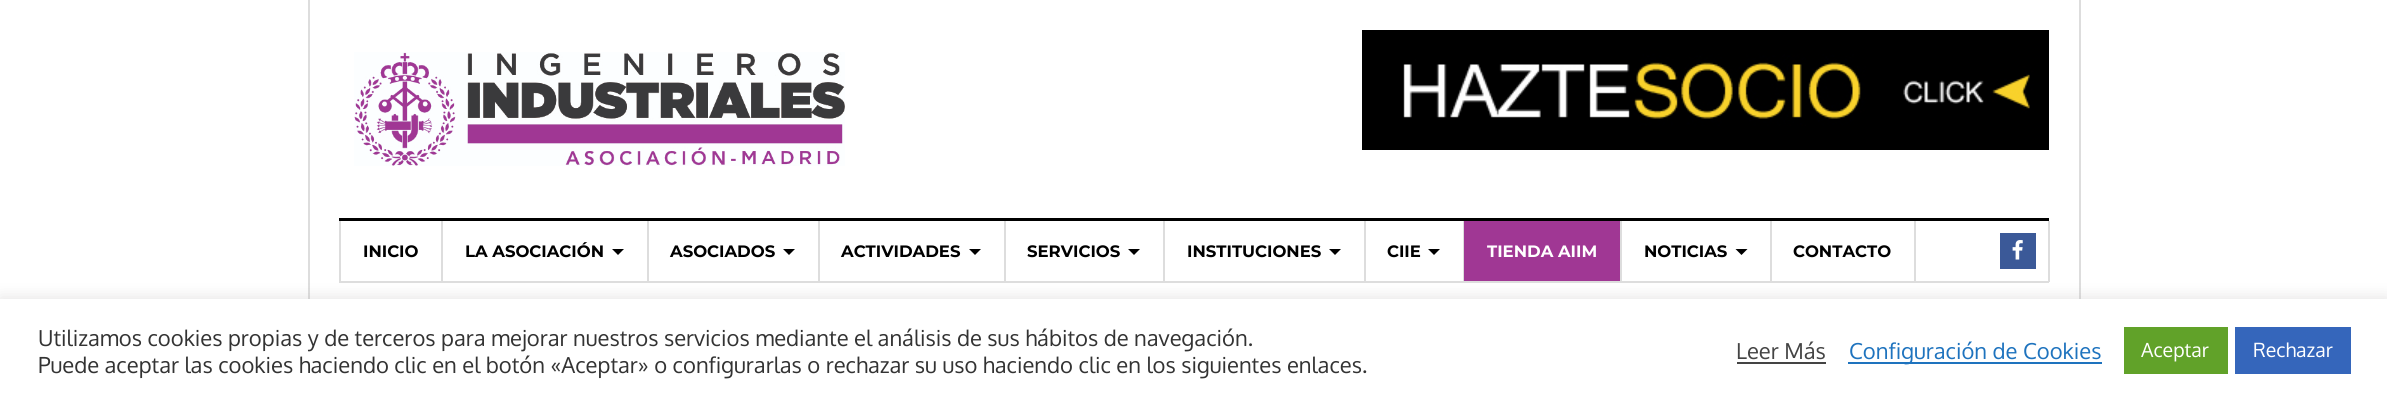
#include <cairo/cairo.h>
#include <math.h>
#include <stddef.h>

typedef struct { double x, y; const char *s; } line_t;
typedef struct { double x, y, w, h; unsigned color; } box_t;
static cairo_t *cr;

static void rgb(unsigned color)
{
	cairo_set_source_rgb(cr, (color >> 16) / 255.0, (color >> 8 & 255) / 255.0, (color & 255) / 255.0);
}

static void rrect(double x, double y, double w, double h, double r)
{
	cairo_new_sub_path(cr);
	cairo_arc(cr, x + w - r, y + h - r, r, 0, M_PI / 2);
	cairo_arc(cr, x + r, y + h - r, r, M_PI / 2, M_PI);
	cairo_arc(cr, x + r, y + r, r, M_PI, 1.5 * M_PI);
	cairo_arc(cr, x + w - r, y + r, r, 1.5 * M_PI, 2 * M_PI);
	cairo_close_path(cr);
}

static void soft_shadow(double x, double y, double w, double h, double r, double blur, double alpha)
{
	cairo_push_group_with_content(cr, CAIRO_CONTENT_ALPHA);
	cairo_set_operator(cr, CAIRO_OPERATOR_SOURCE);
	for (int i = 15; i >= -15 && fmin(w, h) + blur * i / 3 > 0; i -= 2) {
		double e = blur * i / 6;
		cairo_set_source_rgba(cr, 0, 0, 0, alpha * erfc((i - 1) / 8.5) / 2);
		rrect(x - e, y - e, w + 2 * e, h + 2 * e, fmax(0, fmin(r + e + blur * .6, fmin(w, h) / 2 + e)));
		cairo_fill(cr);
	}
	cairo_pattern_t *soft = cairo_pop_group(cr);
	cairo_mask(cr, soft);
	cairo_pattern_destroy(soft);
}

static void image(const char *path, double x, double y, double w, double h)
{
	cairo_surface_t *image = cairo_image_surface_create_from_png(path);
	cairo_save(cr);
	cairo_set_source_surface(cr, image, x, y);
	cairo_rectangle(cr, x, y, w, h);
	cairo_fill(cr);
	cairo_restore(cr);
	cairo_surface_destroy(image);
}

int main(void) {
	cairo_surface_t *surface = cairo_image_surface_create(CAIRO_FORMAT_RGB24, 2387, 401);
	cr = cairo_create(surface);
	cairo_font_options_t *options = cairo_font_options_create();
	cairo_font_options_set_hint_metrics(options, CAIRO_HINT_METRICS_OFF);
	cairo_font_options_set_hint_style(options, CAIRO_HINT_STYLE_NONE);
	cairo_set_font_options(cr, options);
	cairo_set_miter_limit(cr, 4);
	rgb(0xffffff);
	cairo_paint(cr);
	{
		static const box_t items[] = {
			{2079, 0, 2, 299, 0xdddddd},
			{308, 0, 2, 299, 0xdddddd},
			{339, 218, 1710, 3, 0x000000},
		};
		for (size_t i = 0; i < sizeof items / sizeof *items; i++) {
			rgb(items[i].color);
			cairo_rectangle(cr, items[i].x, items[i].y, items[i].w, items[i].h);
			cairo_fill(cr);
		}
	}
	image("img/1.png", 354, 52, 491, 114);
	image("img/2.png", 1362, 30, 687, 120);
	{
		static const box_t items[] = {
			{2048, 221, 2, 61, 0xdddddd},
			{339, 281, 1710, 2, 0xdddddd},
			{339, 221, 2, 61, 0xdddddd},
			{441, 221, 2, 60, 0xdddddd},
			{647, 221, 2, 60, 0xdddddd},
		};
		for (size_t i = 0; i < sizeof items / sizeof *items; i++) {
			rgb(items[i].color);
			cairo_rectangle(cr, items[i].x, items[i].y, items[i].w, items[i].h);
			cairo_fill(cr);
		}
	}
	rgb(0x000000);
	cairo_new_path(cr);
	cairo_move_to(cr, 612, 249);
	cairo_line_to(cr, 624, 249);
	cairo_line_to(cr, 618, 255);
	cairo_close_path(cr);
	cairo_fill(cr);
	rgb(0xdddddd);
	cairo_rectangle(cr, 818, 221, 2, 60);
	cairo_fill(cr);
	rgb(0x000000);
	cairo_new_path(cr);
	cairo_move_to(cr, 783, 249);
	cairo_line_to(cr, 795, 249);
	cairo_line_to(cr, 789, 255);
	cairo_close_path(cr);
	cairo_fill(cr);
	rgb(0xdddddd);
	cairo_rectangle(cr, 1004, 221, 2, 60);
	cairo_fill(cr);
	rgb(0x000000);
	cairo_new_path(cr);
	cairo_move_to(cr, 969, 249);
	cairo_line_to(cr, 981, 249);
	cairo_line_to(cr, 975, 255);
	cairo_close_path(cr);
	cairo_fill(cr);
	rgb(0xdddddd);
	cairo_rectangle(cr, 1163, 221, 2, 60);
	cairo_fill(cr);
	rgb(0x000000);
	cairo_new_path(cr);
	cairo_move_to(cr, 1128, 249);
	cairo_line_to(cr, 1140, 249);
	cairo_line_to(cr, 1134, 255);
	cairo_close_path(cr);
	cairo_fill(cr);
	rgb(0xdddddd);
	cairo_rectangle(cr, 1364, 221, 2, 60);
	cairo_fill(cr);
	rgb(0x000000);
	cairo_new_path(cr);
	cairo_move_to(cr, 1329, 249);
	cairo_line_to(cr, 1341, 249);
	cairo_line_to(cr, 1335, 255);
	cairo_close_path(cr);
	cairo_fill(cr);
	rgb(0xdddddd);
	cairo_rectangle(cr, 1463, 221, 1, 60);
	cairo_fill(cr);
	rgb(0x000000);
	cairo_new_path(cr);
	cairo_move_to(cr, 1428, 249);
	cairo_line_to(cr, 1440, 249);
	cairo_line_to(cr, 1434, 255);
	cairo_close_path(cr);
	cairo_fill(cr);
	{
		static const box_t items[] = {
			{1464, 221, 156, 60, 0xa03794},
			{1620, 221, 2, 60, 0xdddddd},
			{1770, 221, 2, 60, 0xdddddd},
		};
		for (size_t i = 0; i < sizeof items / sizeof *items; i++) {
			rgb(items[i].color);
			cairo_rectangle(cr, items[i].x, items[i].y, items[i].w, items[i].h);
			cairo_fill(cr);
		}
	}
	rgb(0x000000);
	cairo_new_path(cr);
	cairo_move_to(cr, 1735.5, 249);
	cairo_line_to(cr, 1747.5, 249);
	cairo_line_to(cr, 1741.5, 255);
	cairo_close_path(cr);
	cairo_fill(cr);
	rgb(0xdddddd);
	cairo_rectangle(cr, 1914, 221, 2, 60);
	cairo_fill(cr);
	rgb(0x3b5998);
	cairo_rectangle(cr, 2000, 233, 36, 36);
	cairo_fill(cr);
	image("img/3.png", 2012, 240, 11, 20);
	rgb(0xacabab);
	soft_shadow(0, 297, 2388, 104, 0, 7.5, 0.3);
	{
		static const box_t items[] = {
			{0, 299, 2387, 102, 0xffffff},
			{1737, 362, 89, 2, 0x444444},
			{1848, 362, 254, 2, 0x1e73be},
			{2124, 327, 104, 47, 0x61a229},
			{2235, 327, 116, 47, 0x3566bb},
		};
		for (size_t i = 0; i < sizeof items / sizeof *items; i++) {
			rgb(items[i].color);
			cairo_rectangle(cr, items[i].x, items[i].y, items[i].w, items[i].h);
			cairo_fill(cr);
		}
	}
	cairo_select_font_face(cr, "Montserrat", CAIRO_FONT_SLANT_NORMAL, CAIRO_FONT_WEIGHT_BOLD);
	cairo_set_font_size(cr, 16.5);
	rgb(0x000000);
	{
		static const line_t items[] = {
			{363, 257, "INICIO"},
			{465, 257, "LA ASOCIACIÓN"},
			{670, 257, "ASOCIADOS"},
			{841, 257, "ACTIVIDADES"},
			{1027, 257, "SERVICIOS"},
			{1187, 257, "INSTITUCIONES"},
			{1387, 257, "CIIE"},
		};
		for (size_t i = 0; i < sizeof items / sizeof *items; i++) {
			cairo_move_to(cr, items[i].x, items[i].y);
			cairo_show_text(cr, items[i].s);
		}
	}
	rgb(0xffffff);
	cairo_move_to(cr, 1487, 257);
	cairo_show_text(cr, "TIENDA AIIM");
	rgb(0x000000);
	cairo_move_to(cr, 1644, 257);
	cairo_show_text(cr, "NOTICIAS");
	cairo_move_to(cr, 1793, 257);
	cairo_show_text(cr, "CONTACTO");
	cairo_select_font_face(cr, "Oxygen", CAIRO_FONT_SLANT_NORMAL, CAIRO_FONT_WEIGHT_NORMAL);
	cairo_set_font_size(cr, 22);
	rgb(0x333333);
	cairo_move_to(cr, 38, 346);
	cairo_show_text(cr, "Utilizamos cookies propias y de terceros para mejorar nuestros servicios mediante el análisis de sus hábitos de navegación.");
	cairo_move_to(cr, 38, 373);
	cairo_show_text(cr, "Puede aceptar las cookies haciendo clic en el botón «Aceptar» o configurarlas o rechazar su uso haciendo clic en los siguientes enlaces.");
	rgb(0x444444);
	cairo_move_to(cr, 1736, 359);
	cairo_show_text(cr, "Leer Más");
	rgb(0x1e73be);
	cairo_move_to(cr, 1849, 359);
	cairo_show_text(cr, "Configuración de Cookies");
	cairo_set_font_size(cr, 19.5);
	rgb(0xffffff);
	cairo_move_to(cr, 2141, 357);
	cairo_show_text(cr, "Aceptar");
	cairo_move_to(cr, 2253, 357);
	cairo_show_text(cr, "Rechazar");
	cairo_surface_write_to_png(surface, "page.png");
	cairo_font_options_destroy(options);
	cairo_destroy(cr);
	cairo_surface_destroy(surface);
	return 0;
}
